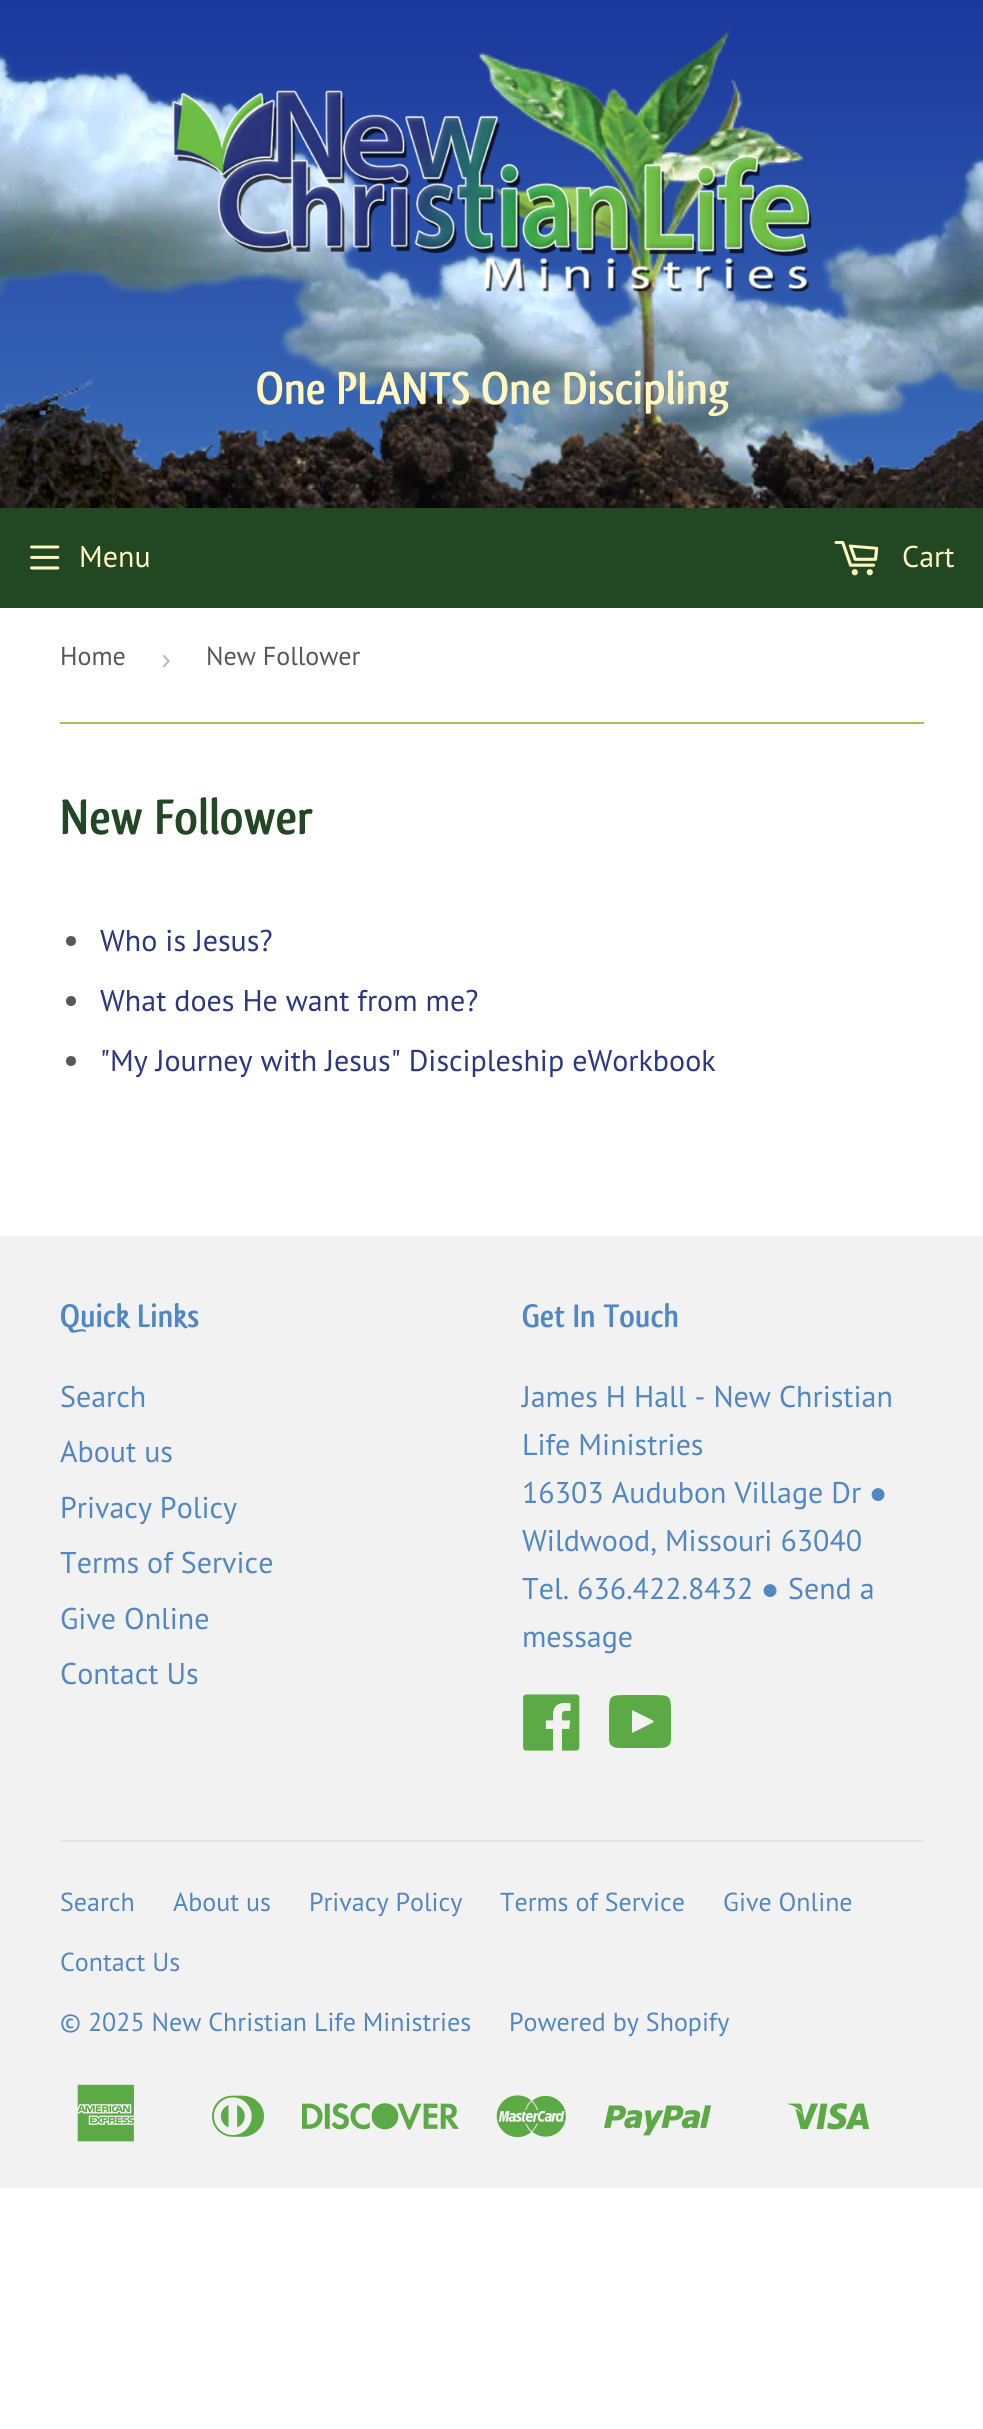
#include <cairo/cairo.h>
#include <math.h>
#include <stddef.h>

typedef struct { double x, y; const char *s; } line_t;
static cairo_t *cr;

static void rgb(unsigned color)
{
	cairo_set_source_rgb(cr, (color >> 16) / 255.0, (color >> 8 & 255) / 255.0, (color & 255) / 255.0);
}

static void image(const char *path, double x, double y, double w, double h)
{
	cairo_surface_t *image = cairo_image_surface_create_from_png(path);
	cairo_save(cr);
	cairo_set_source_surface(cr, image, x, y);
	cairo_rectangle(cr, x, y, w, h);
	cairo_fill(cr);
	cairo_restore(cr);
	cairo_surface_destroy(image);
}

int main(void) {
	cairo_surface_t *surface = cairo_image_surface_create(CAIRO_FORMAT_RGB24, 983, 2429);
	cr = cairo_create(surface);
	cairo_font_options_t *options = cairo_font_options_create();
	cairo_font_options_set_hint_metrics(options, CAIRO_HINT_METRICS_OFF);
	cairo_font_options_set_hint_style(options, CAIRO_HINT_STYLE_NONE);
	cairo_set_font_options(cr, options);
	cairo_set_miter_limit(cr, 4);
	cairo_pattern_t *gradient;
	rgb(0xffffff);
	cairo_paint(cr);
	gradient = cairo_pattern_create_linear(492, 0, 492, 508);
	cairo_pattern_add_color_stop_rgba(gradient, 0, 0.106, 0.216, 0.612, 1);
	cairo_pattern_add_color_stop_rgba(gradient, 1, 0.235, 0.435, 0.729, 1);
	cairo_set_source(cr, gradient);
	cairo_pattern_destroy(gradient);
	cairo_rectangle(cr, 0, 0, 983, 501);
	cairo_fill(cr);
	image("img/1.png", 0, 30, 983, 478);
	image("img/2.png", 172, 90, 640, 202);
	rgb(0x224723);
	cairo_rectangle(cr, 0, 508, 983, 100);
	cairo_fill(cr);
	image("img/3.png", 30, 545, 30, 25);
	image("img/4.png", 834, 541, 45, 35);
	rgb(0x9dc75b);
	cairo_rectangle(cr, 60, 722, 864, 2);
	cairo_fill(cr);
	rgb(0x585858);
	cairo_arc(cr, 71, 941, 5, 0, 2 * M_PI);
	cairo_fill(cr);
	cairo_arc(cr, 71, 1001, 5, 0, 2 * M_PI);
	cairo_fill(cr);
	cairo_arc(cr, 71, 1061, 5, 0, 2 * M_PI);
	cairo_fill(cr);
	rgb(0xf2f2f2);
	cairo_rectangle(cr, 0, 1236, 983, 952);
	cairo_fill(cr);
	image("img/5.png", 523, 1694, 57, 57);
	rgb(0x5baa45);
	cairo_new_path(cr);
	cairo_move_to(cr, 609, 1739);
	cairo_curve_to(cr, 609, 1749, 618, 1748, 625, 1748);
	cairo_line_to(cr, 655, 1748);
	cairo_curve_to(cr, 662, 1748, 671, 1749, 671, 1739);
	cairo_line_to(cr, 671, 1710);
	cairo_curve_to(cr, 671, 1696, 669, 1695, 655, 1695);
	cairo_line_to(cr, 625, 1695);
	cairo_curve_to(cr, 611, 1695, 609, 1696, 609, 1710);
	cairo_close_path(cr);
	cairo_move_to(cr, 632, 1733);
	cairo_line_to(cr, 632, 1710);
	cairo_line_to(cr, 650, 1719);
	cairo_curve_to(cr, 655, 1722, 655, 1721, 650, 1724);
	cairo_close_path(cr);
	cairo_fill(cr);
	rgb(0xe5e5e5);
	cairo_rectangle(cr, 60, 1840, 864, 2);
	cairo_fill(cr);
	image("img/6.png", 77, 2084, 58, 58);
	image("img/7.png", 212, 2095, 52, 42);
	image("img/8.png", 302, 2103, 157, 27);
	image("img/9.png", 496, 2095, 70, 43);
	image("img/10.png", 604, 2105, 108, 31);
	image("img/11.png", 788, 2103, 82, 27);
	cairo_select_font_face(cr, "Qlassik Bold", CAIRO_FONT_SLANT_NORMAL, CAIRO_FONT_WEIGHT_BOLD);
	cairo_set_font_size(cr, 48);
	rgb(0xfff7bf);
	cairo_move_to(cr, 256, 404);
	cairo_show_text(cr, "One PLANTS One Discipling");
	cairo_select_font_face(cr, "PT Sans", CAIRO_FONT_SLANT_NORMAL, CAIRO_FONT_WEIGHT_NORMAL);
	cairo_set_font_size(cr, 30);
	cairo_move_to(cr, 79, 567);
	cairo_show_text(cr, "Menu");
	cairo_move_to(cr, 902, 567);
	cairo_show_text(cr, "Cart");
	cairo_set_font_size(cr, 26);
	rgb(0x585858);
	cairo_move_to(cr, 60, 665);
	cairo_show_text(cr, "Home");
	cairo_select_font_face(cr, "Liberation Sans", CAIRO_FONT_SLANT_NORMAL, CAIRO_FONT_WEIGHT_NORMAL);
	cairo_set_font_size(cr, 30);
	rgb(0xbbbbbb);
	cairo_move_to(cr, 161, 669);
	cairo_show_text(cr, "›");
	cairo_select_font_face(cr, "PT Sans", CAIRO_FONT_SLANT_NORMAL, CAIRO_FONT_WEIGHT_NORMAL);
	cairo_set_font_size(cr, 26);
	rgb(0x585858);
	cairo_move_to(cr, 206, 665);
	cairo_show_text(cr, "New Follower");
	cairo_select_font_face(cr, "Qlassik Bold", CAIRO_FONT_SLANT_NORMAL, CAIRO_FONT_WEIGHT_BOLD);
	cairo_set_font_size(cr, 52);
	rgb(0x214724);
	cairo_move_to(cr, 60, 834);
	cairo_show_text(cr, "New Follower");
	cairo_select_font_face(cr, "PT Sans", CAIRO_FONT_SLANT_NORMAL, CAIRO_FONT_WEIGHT_NORMAL);
	cairo_set_font_size(cr, 30);
	rgb(0x2b3780);
	{
		static const line_t items[] = {
			{100, 951, "Who is Jesus?"},
			{100, 1011, "What does He want from me?"},
			{100, 1071, "\"My Journey with Jesus\" Discipleship eWorkbook"},
		};
		for (size_t i = 0; i < sizeof items / sizeof *items; i++) {
			cairo_move_to(cr, items[i].x, items[i].y);
			cairo_show_text(cr, items[i].s);
		}
	}
	cairo_select_font_face(cr, "Qlassik Bold", CAIRO_FONT_SLANT_NORMAL, CAIRO_FONT_WEIGHT_BOLD);
	cairo_set_font_size(cr, 34);
	rgb(0x5187c2);
	cairo_move_to(cr, 60, 1327);
	cairo_show_text(cr, "Quick Links");
	cairo_select_font_face(cr, "PT Sans", CAIRO_FONT_SLANT_NORMAL, CAIRO_FONT_WEIGHT_NORMAL);
	cairo_set_font_size(cr, 30);
	{
		static const line_t items[] = {
			{60, 1407, "Search"},
			{60, 1462, "About us"},
			{60, 1518, "Privacy Policy"},
			{60, 1573, "Terms of Service"},
			{60, 1629, "Give Online"},
			{60, 1684, "Contact Us"},
		};
		for (size_t i = 0; i < sizeof items / sizeof *items; i++) {
			cairo_move_to(cr, items[i].x, items[i].y);
			cairo_show_text(cr, items[i].s);
		}
	}
	cairo_select_font_face(cr, "Qlassik Bold", CAIRO_FONT_SLANT_NORMAL, CAIRO_FONT_WEIGHT_BOLD);
	cairo_set_font_size(cr, 34);
	cairo_move_to(cr, 522, 1327);
	cairo_show_text(cr, "Get In Touch");
	cairo_select_font_face(cr, "PT Sans", CAIRO_FONT_SLANT_NORMAL, CAIRO_FONT_WEIGHT_NORMAL);
	cairo_set_font_size(cr, 30);
	{
		static const line_t items[] = {
			{522, 1407, "James H Hall - New Christian"},
			{522, 1455, "Life Ministries"},
			{522, 1503, "16303 Audubon Village Dr"},
		};
		for (size_t i = 0; i < sizeof items / sizeof *items; i++) {
			cairo_move_to(cr, items[i].x, items[i].y);
			cairo_show_text(cr, items[i].s);
		}
	}
	cairo_select_font_face(cr, "Liberation Sans", CAIRO_FONT_SLANT_NORMAL, CAIRO_FONT_WEIGHT_NORMAL);
	cairo_move_to(cr, 869, 1503);
	cairo_show_text(cr, "●");
	cairo_select_font_face(cr, "PT Sans", CAIRO_FONT_SLANT_NORMAL, CAIRO_FONT_WEIGHT_NORMAL);
	cairo_move_to(cr, 522, 1551);
	cairo_show_text(cr, "Wildwood, Missouri 63040");
	cairo_move_to(cr, 522, 1599);
	cairo_show_text(cr, "Tel. 636.422.8432");
	cairo_select_font_face(cr, "Liberation Sans", CAIRO_FONT_SLANT_NORMAL, CAIRO_FONT_WEIGHT_NORMAL);
	cairo_move_to(cr, 761, 1599);
	cairo_show_text(cr, "●");
	cairo_select_font_face(cr, "PT Sans", CAIRO_FONT_SLANT_NORMAL, CAIRO_FONT_WEIGHT_NORMAL);
	cairo_move_to(cr, 788, 1599);
	cairo_show_text(cr, "Send a");
	cairo_move_to(cr, 522, 1647);
	cairo_show_text(cr, "message");
	cairo_set_font_size(cr, 26);
	{
		static const line_t items[] = {
			{60, 1911, "Search"},
			{173, 1911, "About us"},
			{309, 1911, "Privacy Policy"},
			{500, 1911, "Terms of Service"},
			{723, 1911, "Give Online"},
			{60, 1971, "Contact Us"},
			{60, 2031, "© 2025 New Christian Life Ministries"},
			{509, 2031, "Powered by Shopify"},
		};
		for (size_t i = 0; i < sizeof items / sizeof *items; i++) {
			cairo_move_to(cr, items[i].x, items[i].y);
			cairo_show_text(cr, items[i].s);
		}
	}
	cairo_surface_write_to_png(surface, "page.png");
	cairo_font_options_destroy(options);
	cairo_destroy(cr);
	cairo_surface_destroy(surface);
	return 0;
}
